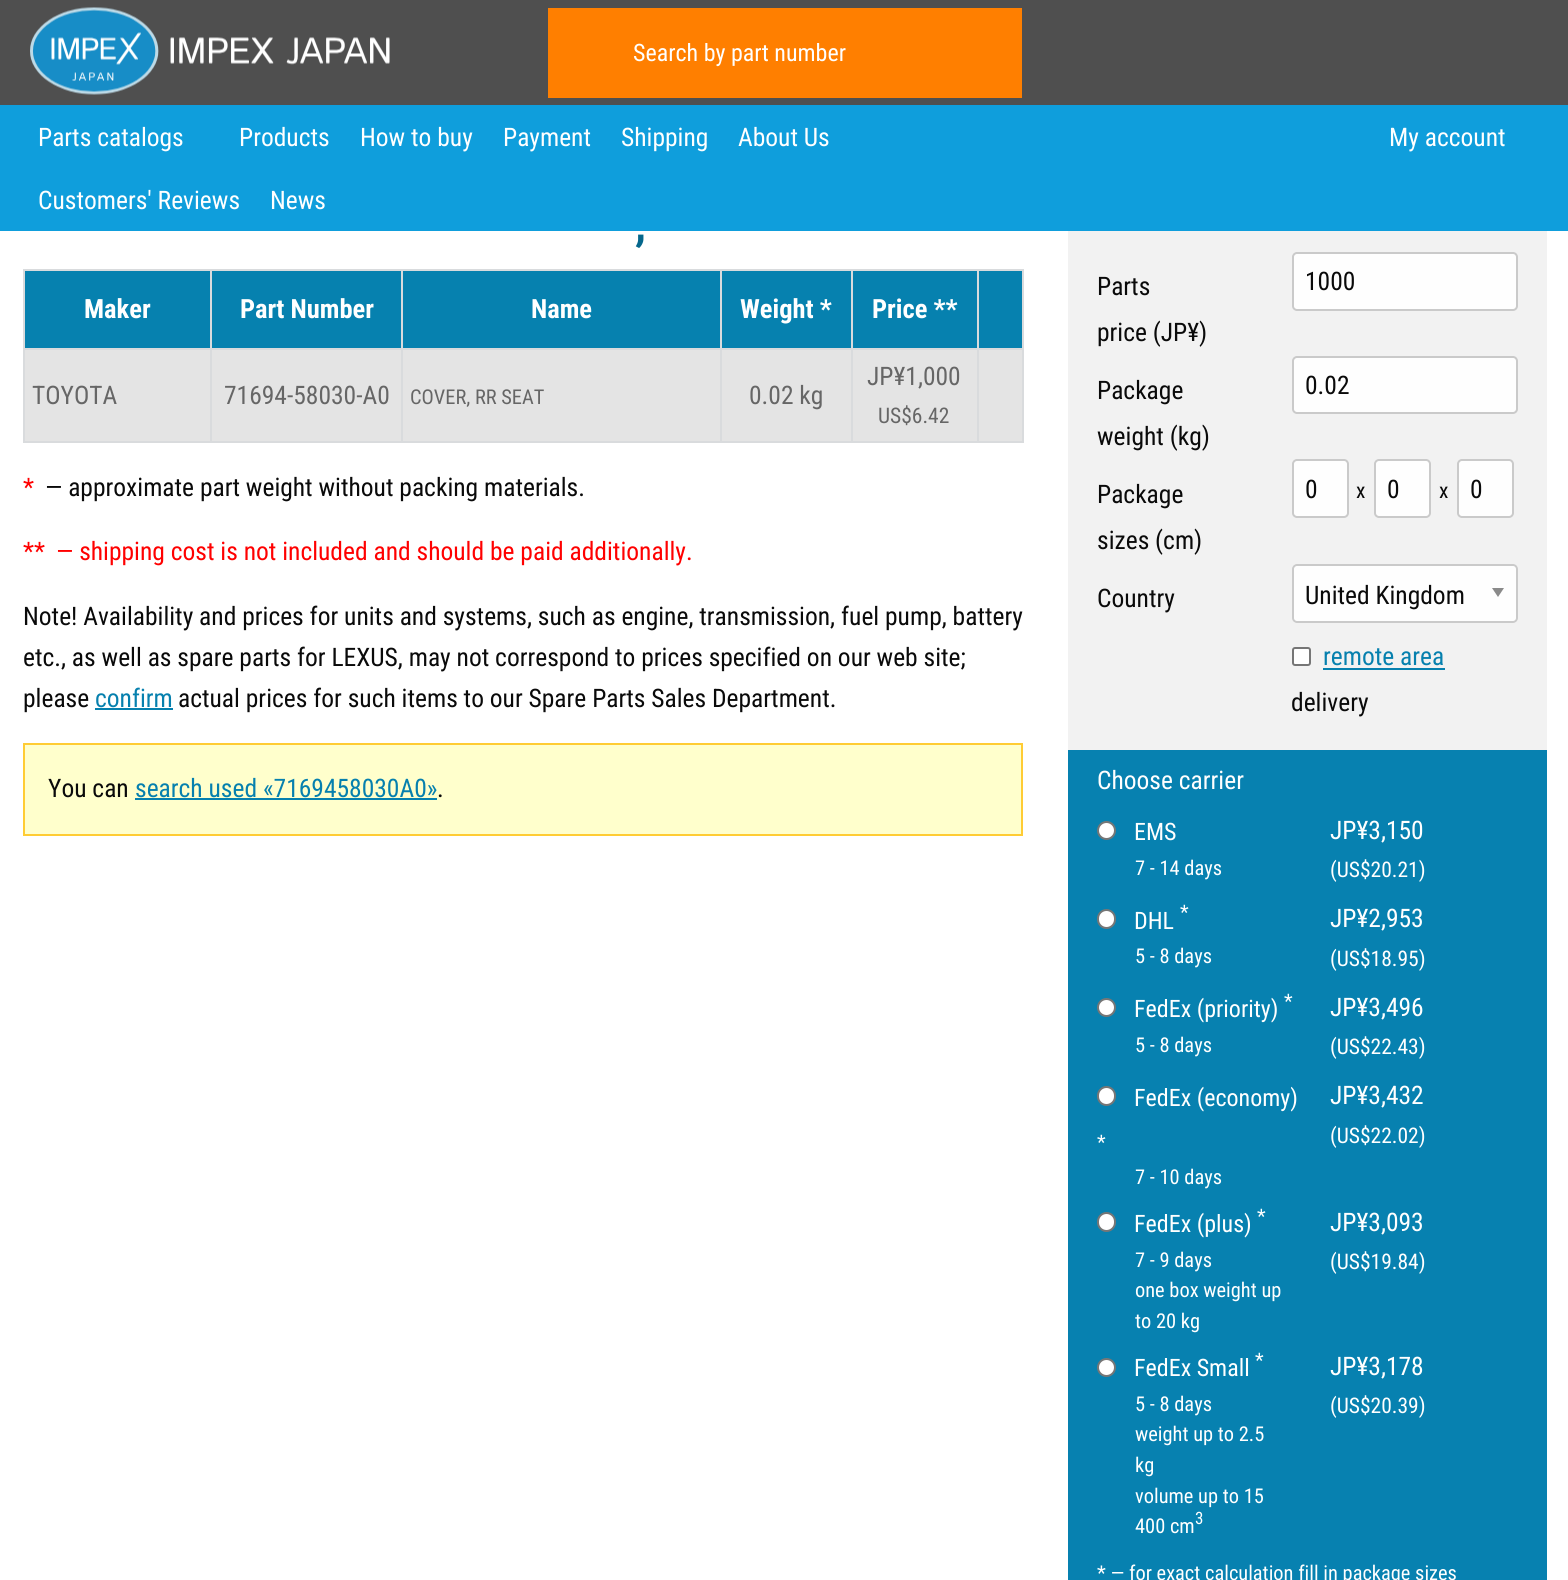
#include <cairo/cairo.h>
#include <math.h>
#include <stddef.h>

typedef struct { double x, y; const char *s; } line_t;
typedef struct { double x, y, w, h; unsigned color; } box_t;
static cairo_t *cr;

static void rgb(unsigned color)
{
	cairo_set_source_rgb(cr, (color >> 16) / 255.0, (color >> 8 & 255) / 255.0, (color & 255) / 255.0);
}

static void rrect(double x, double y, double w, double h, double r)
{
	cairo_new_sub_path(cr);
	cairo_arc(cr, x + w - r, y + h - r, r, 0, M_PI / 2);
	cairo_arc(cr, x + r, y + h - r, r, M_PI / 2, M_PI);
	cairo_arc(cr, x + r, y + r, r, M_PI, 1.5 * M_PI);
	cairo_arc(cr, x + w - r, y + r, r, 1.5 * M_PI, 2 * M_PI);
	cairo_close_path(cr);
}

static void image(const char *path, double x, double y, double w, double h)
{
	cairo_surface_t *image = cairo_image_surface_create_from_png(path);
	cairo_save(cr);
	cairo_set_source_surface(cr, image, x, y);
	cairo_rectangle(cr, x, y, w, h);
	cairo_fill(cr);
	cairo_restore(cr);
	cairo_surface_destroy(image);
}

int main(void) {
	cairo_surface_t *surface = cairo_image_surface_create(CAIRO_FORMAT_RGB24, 1568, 1580);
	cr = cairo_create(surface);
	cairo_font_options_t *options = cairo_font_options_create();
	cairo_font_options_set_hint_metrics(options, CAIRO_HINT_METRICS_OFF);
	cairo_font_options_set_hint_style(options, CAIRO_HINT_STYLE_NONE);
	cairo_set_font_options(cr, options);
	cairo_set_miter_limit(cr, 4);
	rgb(0xffffff);
	cairo_paint(cr);
	rgb(0x4f4f4f);
	cairo_rectangle(cr, 0, 0, 1568, 105);
	cairo_fill(cr);
	image("img/1.png", 30, 7, 360, 88);
	{
		static const box_t items[] = {
			{548, 8, 474, 90, 0xff7f00},
			{0, 105, 1568, 126, 0x0f9edc},
			{25, 271, 185, 77, 0x0681af},
			{977, 269, 46, 2, 0xd9dbdd},
			{977, 348, 46, 2, 0xd9dbdd},
			{1022, 348, 2, 95, 0xd9dbdd},
			{977, 441, 46, 2, 0xd9dbdd},
			{977, 348, 2, 95, 0xd9dbdd},
			{851, 348, 127, 2, 0xd9dbdd},
			{977, 269, 2, 81, 0xd9dbdd},
			{851, 269, 127, 2, 0xd9dbdd},
			{851, 441, 127, 2, 0xd9dbdd},
			{851, 348, 2, 95, 0xd9dbdd},
			{720, 348, 132, 2, 0xd9dbdd},
			{851, 269, 2, 81, 0xd9dbdd},
			{720, 269, 132, 2, 0xd9dbdd},
			{720, 441, 132, 2, 0xd9dbdd},
			{720, 348, 2, 95, 0xd9dbdd},
			{401, 348, 321, 2, 0xd9dbdd},
			{720, 269, 2, 81, 0xd9dbdd},
			{401, 269, 321, 2, 0xd9dbdd},
			{401, 441, 321, 2, 0xd9dbdd},
			{401, 348, 2, 95, 0xd9dbdd},
			{210, 348, 192, 2, 0xd9dbdd},
			{401, 269, 2, 81, 0xd9dbdd},
			{210, 269, 192, 2, 0xd9dbdd},
			{210, 441, 192, 2, 0xd9dbdd},
			{210, 348, 2, 95, 0xd9dbdd},
			{23, 348, 189, 2, 0xd9dbdd},
			{210, 269, 2, 81, 0xd9dbdd},
			{23, 269, 189, 2, 0xd9dbdd},
			{23, 441, 189, 2, 0xd9dbdd},
			{23, 348, 2, 95, 0xd9dbdd},
			{23, 269, 2, 81, 0xd9dbdd},
			{212, 271, 189, 77, 0x0681af},
			{403, 271, 317, 77, 0x0681af},
			{722, 271, 129, 77, 0x0681af},
			{853, 271, 124, 77, 0x0681af},
			{979, 271, 43, 77, 0x0681af},
			{1022, 269, 2, 81, 0xd9dbdd},
			{25, 350, 185, 91, 0xe4e4e4},
			{212, 350, 189, 91, 0xe4e4e4},
			{403, 350, 317, 91, 0xe4e4e4},
			{722, 350, 129, 91, 0xe4e4e4},
			{853, 350, 124, 91, 0xe4e4e4},
			{979, 350, 43, 91, 0xe4e4e4},
			{95, 708, 78, 2, 0x0680ae},
		};
		for (size_t i = 0; i < sizeof items / sizeof *items; i++) {
			rgb(items[i].color);
			cairo_rectangle(cr, items[i].x, items[i].y, items[i].w, items[i].h);
			cairo_fill(cr);
		}
	}
	rgb(0xffffcc);
	cairo_rectangle(cr, 24, 744, 998, 91);
	cairo_fill_preserve(cr);
	rgb(0xffcc34);
	cairo_stroke(cr);
	rgb(0x0680ae);
	cairo_rectangle(cr, 135, 798, 302, 2);
	cairo_fill(cr);
	rgb(0xf2f2f2);
	cairo_rectangle(cr, 1068, 231, 479, 519);
	cairo_fill(cr);
	rgb(0xfefefe);
	rrect(1293, 253, 224, 57, 4);
	cairo_fill_preserve(cr);
	rgb(0xcacaca);
	cairo_stroke(cr);
	rgb(0xfefefe);
	rrect(1293, 357, 224, 56, 4);
	cairo_fill_preserve(cr);
	rgb(0xcacaca);
	cairo_stroke(cr);
	rgb(0xfefefe);
	rrect(1293, 460, 55, 57, 4);
	cairo_fill_preserve(cr);
	rgb(0xcacaca);
	cairo_stroke(cr);
	rgb(0xfefefe);
	rrect(1375, 460, 55, 57, 4);
	cairo_fill_preserve(cr);
	rgb(0xcacaca);
	cairo_stroke(cr);
	rgb(0xfefefe);
	rrect(1458, 460, 55, 57, 4);
	cairo_fill_preserve(cr);
	rgb(0xcacaca);
	cairo_stroke(cr);
	rgb(0xfefefe);
	rrect(1292, 564, 226, 59, 5);
	cairo_fill(cr);
	rgb(0x8a8a8a);
	cairo_new_path(cr);
	cairo_move_to(cr, 1492, 588);
	cairo_line_to(cr, 1504, 588);
	cairo_line_to(cr, 1498, 597);
	cairo_close_path(cr);
	cairo_fill(cr);
	rrect(1293, 565, 224, 57, 4);
	rgb(0xcacaca);
	cairo_stroke(cr);
	rgb(0xffffff);
	rrect(1293, 648, 17, 17, 2);
	cairo_fill_preserve(cr);
	rgb(0x767676);
	cairo_stroke(cr);
	rgb(0x0680ae);
	cairo_rectangle(cr, 1323, 668, 122, 2);
	cairo_fill(cr);
	rgb(0x0781b0);
	cairo_rectangle(cr, 1068, 750, 479, 830);
	cairo_fill(cr);
	rgb(0xffffff);
	cairo_arc(cr, 1106.5, 830.5, 8.5, 0, 2 * M_PI);
	cairo_fill_preserve(cr);
	rgb(0x767676);
	cairo_stroke(cr);
	rgb(0xffffff);
	rrect(1098, 910, 17, 18, 8.5);
	cairo_fill_preserve(cr);
	rgb(0x767676);
	cairo_stroke(cr);
	rgb(0xffffff);
	cairo_arc(cr, 1106.5, 1007.5, 8.5, 0, 2 * M_PI);
	cairo_fill_preserve(cr);
	rgb(0x767676);
	cairo_stroke(cr);
	rgb(0xffffff);
	rrect(1098, 1087, 17, 18, 8.5);
	cairo_fill_preserve(cr);
	rgb(0x767676);
	cairo_stroke(cr);
	rgb(0xffffff);
	rrect(1098, 1213, 17, 18, 8.5);
	cairo_fill_preserve(cr);
	rgb(0x767676);
	cairo_stroke(cr);
	rgb(0xffffff);
	cairo_arc(cr, 1106.5, 1367.5, 8.5, 0, 2 * M_PI);
	cairo_fill_preserve(cr);
	rgb(0x767676);
	cairo_stroke(cr);
	cairo_select_font_face(cr, "Roboto Condensed", CAIRO_FONT_SLANT_NORMAL, CAIRO_FONT_WEIGHT_NORMAL);
	cairo_set_font_size(cr, 24);
	rgb(0xffffff);
	cairo_move_to(cr, 633, 61);
	cairo_show_text(cr, "Search by part number");
	cairo_set_font_size(cr, 25.5);
	{
		static const line_t items[] = {
			{38, 146, "Parts catalogs"},
			{239, 146, "Products"},
			{360, 146, "How to buy"},
			{503, 146, "Payment"},
			{621, 146, "Shipping"},
			{738, 146, "About Us"},
			{38, 209, "Customers' Reviews"},
			{270, 209, "News"},
			{1389, 146, "My account"},
		};
		for (size_t i = 0; i < sizeof items / sizeof *items; i++) {
			cairo_move_to(cr, items[i].x, items[i].y);
			cairo_show_text(cr, items[i].s);
		}
	}
	cairo_select_font_face(cr, "Roboto Condensed", CAIRO_FONT_SLANT_NORMAL, CAIRO_FONT_WEIGHT_BOLD);
	cairo_set_font_size(cr, 45);
	rgb(0x05678c);
	cairo_move_to(cr, 635, 240);
	cairo_show_text(cr, ",");
	cairo_set_font_size(cr, 26.5);
	rgb(0xffffff);
	{
		static const line_t items[] = {
			{84, 318, "Maker"},
			{240, 318, "Part Number"},
			{531, 318, "Name"},
			{740, 318, "Weight *"},
			{872, 318, "Price **"},
		};
		for (size_t i = 0; i < sizeof items / sizeof *items; i++) {
			cairo_move_to(cr, items[i].x, items[i].y);
			cairo_show_text(cr, items[i].s);
		}
	}
	cairo_select_font_face(cr, "Roboto Condensed", CAIRO_FONT_SLANT_NORMAL, CAIRO_FONT_WEIGHT_NORMAL);
	cairo_set_font_size(cr, 25.5);
	rgb(0x666666);
	cairo_move_to(cr, 32, 404);
	cairo_show_text(cr, "TOYOTA");
	cairo_move_to(cr, 224, 404);
	cairo_show_text(cr, "71694-58030-A0");
	cairo_set_font_size(cr, 20.4);
	cairo_move_to(cr, 410, 404);
	cairo_show_text(cr, "COVER, RR SEAT");
	cairo_set_font_size(cr, 25.5);
	cairo_move_to(cr, 749, 404);
	cairo_show_text(cr, "0.02 kg");
	cairo_move_to(cr, 867, 385);
	cairo_show_text(cr, "JP¥1,000");
	cairo_set_font_size(cr, 21.5);
	cairo_move_to(cr, 878, 423);
	cairo_show_text(cr, "US$6.42");
	cairo_set_font_size(cr, 25.5);
	rgb(0xff0000);
	cairo_move_to(cr, 23, 496);
	cairo_show_text(cr, "*");
	rgb(0x0a0a0a);
	cairo_move_to(cr, 45, 496);
	cairo_show_text(cr, "— approximate part weight without packing materials.");
	rgb(0xff0000);
	cairo_move_to(cr, 23, 560);
	cairo_show_text(cr, "**");
	cairo_move_to(cr, 56, 560);
	cairo_show_text(cr, "— shipping cost is not included and should be paid additionally.");
	rgb(0x0a0a0a);
	{
		static const line_t items[] = {
			{23, 625, "Note! Availability and prices for units and systems, such as engine, transmission, fuel pump, battery"},
			{23, 666, "etc., as well as spare parts for LEXUS, may not correspond to prices specified on our web site;"},
			{23, 707, "please"},
		};
		for (size_t i = 0; i < sizeof items / sizeof *items; i++) {
			cairo_move_to(cr, items[i].x, items[i].y);
			cairo_show_text(cr, items[i].s);
		}
	}
	rgb(0x0680ae);
	cairo_move_to(cr, 95, 707);
	cairo_show_text(cr, "confirm");
	rgb(0x0a0a0a);
	cairo_move_to(cr, 178, 707);
	cairo_show_text(cr, "actual prices for such items to our Spare Parts Sales Department.");
	cairo_move_to(cr, 48, 797);
	cairo_show_text(cr, "You can");
	rgb(0x0680ae);
	cairo_move_to(cr, 135, 797);
	cairo_show_text(cr, "search used «7169458030A0»");
	rgb(0x0a0a0a);
	{
		static const line_t items[] = {
			{437, 797, "."},
			{1097, 295, "Parts"},
			{1097, 341, "price (JP¥)"},
			{1305, 290, "1000"},
			{1097, 399, "Package"},
			{1097, 445, "weight (kg)"},
			{1305, 394, "0.02"},
			{1097, 503, "Package"},
			{1097, 549, "sizes (cm)"},
			{1305, 498, "0"},
		};
		for (size_t i = 0; i < sizeof items / sizeof *items; i++) {
			cairo_move_to(cr, items[i].x, items[i].y);
			cairo_show_text(cr, items[i].s);
		}
	}
	cairo_set_font_size(cr, 21.5);
	cairo_move_to(cr, 1356, 498);
	cairo_show_text(cr, "x");
	cairo_set_font_size(cr, 25.5);
	cairo_move_to(cr, 1387, 498);
	cairo_show_text(cr, "0");
	cairo_set_font_size(cr, 21.5);
	cairo_move_to(cr, 1439, 498);
	cairo_show_text(cr, "x");
	cairo_set_font_size(cr, 25.5);
	{
		static const line_t items[] = {
			{1470, 498, "0"},
			{1097, 607, "Country"},
			{1305, 604, "United Kingdom"},
		};
		for (size_t i = 0; i < sizeof items / sizeof *items; i++) {
			cairo_move_to(cr, items[i].x, items[i].y);
			cairo_show_text(cr, items[i].s);
		}
	}
	rgb(0x0680ae);
	cairo_move_to(cr, 1323, 665);
	cairo_show_text(cr, "remote area");
	rgb(0x0a0a0a);
	cairo_move_to(cr, 1291, 711);
	cairo_show_text(cr, "delivery");
	rgb(0xffffff);
	cairo_move_to(cr, 1097, 789);
	cairo_show_text(cr, "Choose carrier");
	cairo_set_font_size(cr, 24);
	cairo_move_to(cr, 1134, 840);
	cairo_show_text(cr, "EMS");
	cairo_set_font_size(cr, 20.4);
	cairo_move_to(cr, 1135, 875);
	cairo_show_text(cr, "7 - 14 days");
	cairo_set_font_size(cr, 25.5);
	cairo_move_to(cr, 1330, 839);
	cairo_show_text(cr, "JP¥3,150");
	cairo_set_font_size(cr, 21.5);
	cairo_move_to(cr, 1330, 877);
	cairo_show_text(cr, "(US$20.21)");
	cairo_set_font_size(cr, 24);
	cairo_move_to(cr, 1134, 929);
	cairo_show_text(cr, "DHL");
	cairo_set_font_size(cr, 20);
	cairo_move_to(cr, 1180, 919);
	cairo_show_text(cr, "*");
	cairo_set_font_size(cr, 20.4);
	cairo_move_to(cr, 1135, 963);
	cairo_show_text(cr, "5 - 8 days");
	cairo_set_font_size(cr, 25.5);
	cairo_move_to(cr, 1330, 927);
	cairo_show_text(cr, "JP¥2,953");
	cairo_set_font_size(cr, 21.5);
	cairo_move_to(cr, 1330, 966);
	cairo_show_text(cr, "(US$18.95)");
	cairo_set_font_size(cr, 24);
	cairo_move_to(cr, 1134, 1017);
	cairo_show_text(cr, "FedEx (priority)");
	cairo_set_font_size(cr, 20);
	cairo_move_to(cr, 1284, 1008);
	cairo_show_text(cr, "*");
	cairo_set_font_size(cr, 20.4);
	cairo_move_to(cr, 1135, 1052);
	cairo_show_text(cr, "5 - 8 days");
	cairo_set_font_size(cr, 25.5);
	cairo_move_to(cr, 1330, 1016);
	cairo_show_text(cr, "JP¥3,496");
	cairo_set_font_size(cr, 21.5);
	cairo_move_to(cr, 1330, 1054);
	cairo_show_text(cr, "(US$22.43)");
	cairo_set_font_size(cr, 24);
	cairo_move_to(cr, 1134, 1106);
	cairo_show_text(cr, "FedEx (economy)");
	cairo_set_font_size(cr, 20);
	cairo_move_to(cr, 1097, 1149);
	cairo_show_text(cr, "*");
	cairo_set_font_size(cr, 20.4);
	cairo_move_to(cr, 1135, 1184);
	cairo_show_text(cr, "7 - 10 days");
	cairo_set_font_size(cr, 25.5);
	cairo_move_to(cr, 1330, 1104);
	cairo_show_text(cr, "JP¥3,432");
	cairo_set_font_size(cr, 21.5);
	cairo_move_to(cr, 1330, 1143);
	cairo_show_text(cr, "(US$22.02)");
	cairo_set_font_size(cr, 24);
	cairo_move_to(cr, 1134, 1232);
	cairo_show_text(cr, "FedEx (plus)");
	cairo_set_font_size(cr, 20);
	cairo_move_to(cr, 1257, 1223);
	cairo_show_text(cr, "*");
	cairo_set_font_size(cr, 20.4);
	{
		static const line_t items[] = {
			{1135, 1267, "7 - 9 days"},
			{1135, 1297, "one box weight up"},
			{1135, 1328, "to 20 kg"},
		};
		for (size_t i = 0; i < sizeof items / sizeof *items; i++) {
			cairo_move_to(cr, items[i].x, items[i].y);
			cairo_show_text(cr, items[i].s);
		}
	}
	cairo_set_font_size(cr, 25.5);
	cairo_move_to(cr, 1330, 1231);
	cairo_show_text(cr, "JP¥3,093");
	cairo_set_font_size(cr, 21.5);
	cairo_move_to(cr, 1330, 1269);
	cairo_show_text(cr, "(US$19.84)");
	cairo_set_font_size(cr, 20);
	cairo_move_to(cr, 1255, 1367);
	cairo_show_text(cr, "*");
	cairo_set_font_size(cr, 24);
	cairo_move_to(cr, 1134, 1376);
	cairo_show_text(cr, "FedEx Small");
	cairo_set_font_size(cr, 20.4);
	{
		static const line_t items[] = {
			{1135, 1411, "5 - 8 days"},
			{1135, 1441, "weight up to 2.5"},
			{1135, 1472, "kg"},
			{1135, 1503, "volume up to 15"},
			{1135, 1533, "400 cm"},
		};
		for (size_t i = 0; i < sizeof items / sizeof *items; i++) {
			cairo_move_to(cr, items[i].x, items[i].y);
			cairo_show_text(cr, items[i].s);
		}
	}
	cairo_set_font_size(cr, 17);
	cairo_move_to(cr, 1195, 1524);
	cairo_show_text(cr, "3");
	cairo_set_font_size(cr, 25.5);
	cairo_move_to(cr, 1330, 1375);
	cairo_show_text(cr, "JP¥3,178");
	cairo_set_font_size(cr, 21.5);
	cairo_move_to(cr, 1330, 1413);
	cairo_show_text(cr, "(US$20.39)");
	cairo_set_font_size(cr, 20.4);
	cairo_move_to(cr, 1097, 1580);
	cairo_show_text(cr, "* — for exact calculation fill in package sizes");
	cairo_surface_write_to_png(surface, "page.png");
	cairo_font_options_destroy(options);
	cairo_destroy(cr);
	cairo_surface_destroy(surface);
	return 0;
}
